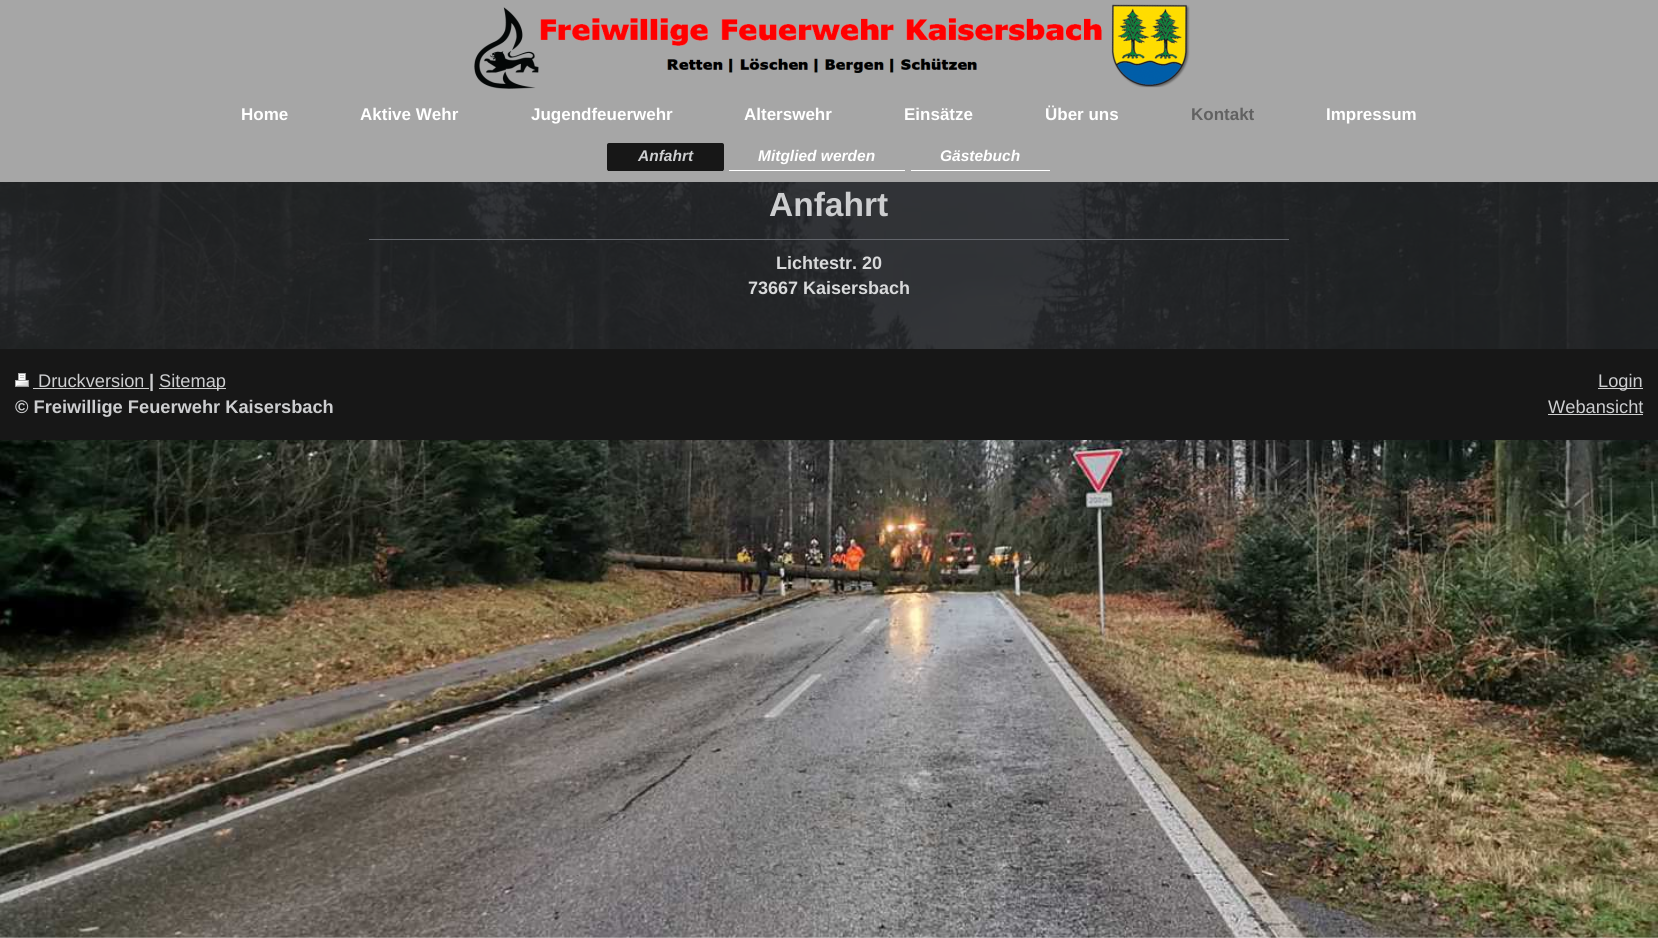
#include <cairo/cairo.h>
#include <math.h>
#include <stddef.h>

typedef struct { double x, y; const char *s; } line_t;
typedef struct { double x, y, w, h; unsigned color; } box_t;
static cairo_t *cr;

static void rgb(unsigned color)
{
	cairo_set_source_rgb(cr, (color >> 16) / 255.0, (color >> 8 & 255) / 255.0, (color & 255) / 255.0);
}

static void rrect(double x, double y, double w, double h, double r)
{
	cairo_new_sub_path(cr);
	cairo_arc(cr, x + w - r, y + h - r, r, 0, M_PI / 2);
	cairo_arc(cr, x + r, y + h - r, r, M_PI / 2, M_PI);
	cairo_arc(cr, x + r, y + r, r, M_PI, 1.5 * M_PI);
	cairo_arc(cr, x + w - r, y + r, r, 1.5 * M_PI, 2 * M_PI);
	cairo_close_path(cr);
}

static void image(const char *path, double x, double y, double w, double h)
{
	cairo_surface_t *image = cairo_image_surface_create_from_png(path);
	cairo_save(cr);
	cairo_set_source_surface(cr, image, x, y);
	cairo_rectangle(cr, x, y, w, h);
	cairo_fill(cr);
	cairo_restore(cr);
	cairo_surface_destroy(image);
}

int main(void) {
	cairo_surface_t *surface = cairo_image_surface_create(CAIRO_FORMAT_RGB24, 1658, 938);
	cr = cairo_create(surface);
	cairo_font_options_t *options = cairo_font_options_create();
	cairo_font_options_set_hint_metrics(options, CAIRO_HINT_METRICS_OFF);
	cairo_font_options_set_hint_style(options, CAIRO_HINT_STYLE_NONE);
	cairo_set_font_options(cr, options);
	cairo_set_miter_limit(cr, 4);
	rgb(0xffffff);
	cairo_paint(cr);
	image("img/1.png", 0, 182, 1658, 756);
	rgb(0xa6a6a6);
	cairo_rectangle(cr, 0, 0, 1658, 182);
	cairo_fill(cr);
	image("img/2.png", 474, 4, 716, 85);
	rgb(0x171717);
	rrect(607, 143, 117, 28, 2);
	cairo_fill(cr);
	cairo_rectangle(cr, 608, 170, 115, 1);
	cairo_fill(cr);
	rgb(0xffffff);
	cairo_rectangle(cr, 729, 170, 176, 1);
	cairo_fill(cr);
	cairo_rectangle(cr, 911, 170, 139, 1);
	cairo_fill(cr);
	cairo_set_source_rgba(cr, 0.129, 0.133, 0.141, 0.9);
	cairo_rectangle(cr, 0, 182, 1658, 167);
	cairo_fill(cr);
	rgb(0x63666c);
	cairo_rectangle(cr, 369, 239, 920, 1);
	cairo_fill(cr);
	rgb(0x171717);
	cairo_rectangle(cr, 0, 349, 1658, 91);
	cairo_fill(cr);
	image("img/3.png", 15, 373, 14, 14);
	{
		static const box_t items[] = {
			{33, 388, 116, 1, 0xcfcfcf},
			{159, 388, 67, 1, 0xcfcfcf},
			{1598, 388, 45, 1, 0xcfcfcf},
			{1548, 414, 95, 1, 0xcfcfcf},
		};
		for (size_t i = 0; i < sizeof items / sizeof *items; i++) {
			rgb(items[i].color);
			cairo_rectangle(cr, items[i].x, items[i].y, items[i].w, items[i].h);
			cairo_fill(cr);
		}
	}
	cairo_select_font_face(cr, "Liberation Sans", CAIRO_FONT_SLANT_NORMAL, CAIRO_FONT_WEIGHT_BOLD);
	cairo_set_font_size(cr, 17);
	rgb(0xffffff);
	{
		static const line_t items[] = {
			{241, 120, "Home"},
			{360, 120, "Aktive Wehr"},
			{531, 120, "Jugendfeuerwehr"},
			{744, 120, "Alterswehr"},
			{904, 120, "Einsätze"},
			{1045, 120, "Über uns"},
		};
		for (size_t i = 0; i < sizeof items / sizeof *items; i++) {
			cairo_move_to(cr, items[i].x, items[i].y);
			cairo_show_text(cr, items[i].s);
		}
	}
	rgb(0x616161);
	cairo_move_to(cr, 1191, 120);
	cairo_show_text(cr, "Kontakt");
	rgb(0xffffff);
	cairo_move_to(cr, 1326, 120);
	cairo_show_text(cr, "Impressum");
	cairo_select_font_face(cr, "Liberation Sans", CAIRO_FONT_SLANT_ITALIC, CAIRO_FONT_WEIGHT_BOLD);
	cairo_set_font_size(cr, 15.5);
	rgb(0xcdced0);
	cairo_move_to(cr, 638, 161);
	cairo_show_text(cr, "Anfahrt");
	rgb(0xffffff);
	cairo_move_to(cr, 758, 161);
	cairo_show_text(cr, "Mitglied werden");
	cairo_move_to(cr, 940, 161);
	cairo_show_text(cr, "Gästebuch");
	cairo_select_font_face(cr, "Liberation Sans", CAIRO_FONT_SLANT_NORMAL, CAIRO_FONT_WEIGHT_BOLD);
	cairo_set_font_size(cr, 33.5);
	rgb(0xcdced0);
	cairo_move_to(cr, 769, 216);
	cairo_show_text(cr, "Anfahrt");
	cairo_set_font_size(cr, 18);
	rgb(0xd9dadb);
	cairo_move_to(cr, 776, 269);
	cairo_show_text(cr, "Lichtestr. 20");
	cairo_move_to(cr, 748, 294);
	cairo_show_text(cr, "73667 Kaisersbach");
	cairo_select_font_face(cr, "Liberation Sans", CAIRO_FONT_SLANT_NORMAL, CAIRO_FONT_WEIGHT_NORMAL);
	cairo_set_font_size(cr, 18.25);
	rgb(0xcdced0);
	cairo_move_to(cr, 38, 387);
	cairo_show_text(cr, "Druckversion");
	cairo_select_font_face(cr, "Liberation Sans", CAIRO_FONT_SLANT_NORMAL, CAIRO_FONT_WEIGHT_BOLD);
	cairo_move_to(cr, 149, 387);
	cairo_show_text(cr, "|");
	cairo_select_font_face(cr, "Liberation Sans", CAIRO_FONT_SLANT_NORMAL, CAIRO_FONT_WEIGHT_NORMAL);
	cairo_move_to(cr, 159, 387);
	cairo_show_text(cr, "Sitemap");
	cairo_select_font_face(cr, "Liberation Sans", CAIRO_FONT_SLANT_NORMAL, CAIRO_FONT_WEIGHT_BOLD);
	cairo_move_to(cr, 15, 413);
	cairo_show_text(cr, "© Freiwillige Feuerwehr Kaisersbach");
	cairo_select_font_face(cr, "Liberation Sans", CAIRO_FONT_SLANT_NORMAL, CAIRO_FONT_WEIGHT_NORMAL);
	cairo_move_to(cr, 1598, 387);
	cairo_show_text(cr, "Login");
	cairo_move_to(cr, 1548, 413);
	cairo_show_text(cr, "Webansicht");
	cairo_surface_write_to_png(surface, "page.png");
	cairo_font_options_destroy(options);
	cairo_destroy(cr);
	cairo_surface_destroy(surface);
	return 0;
}
